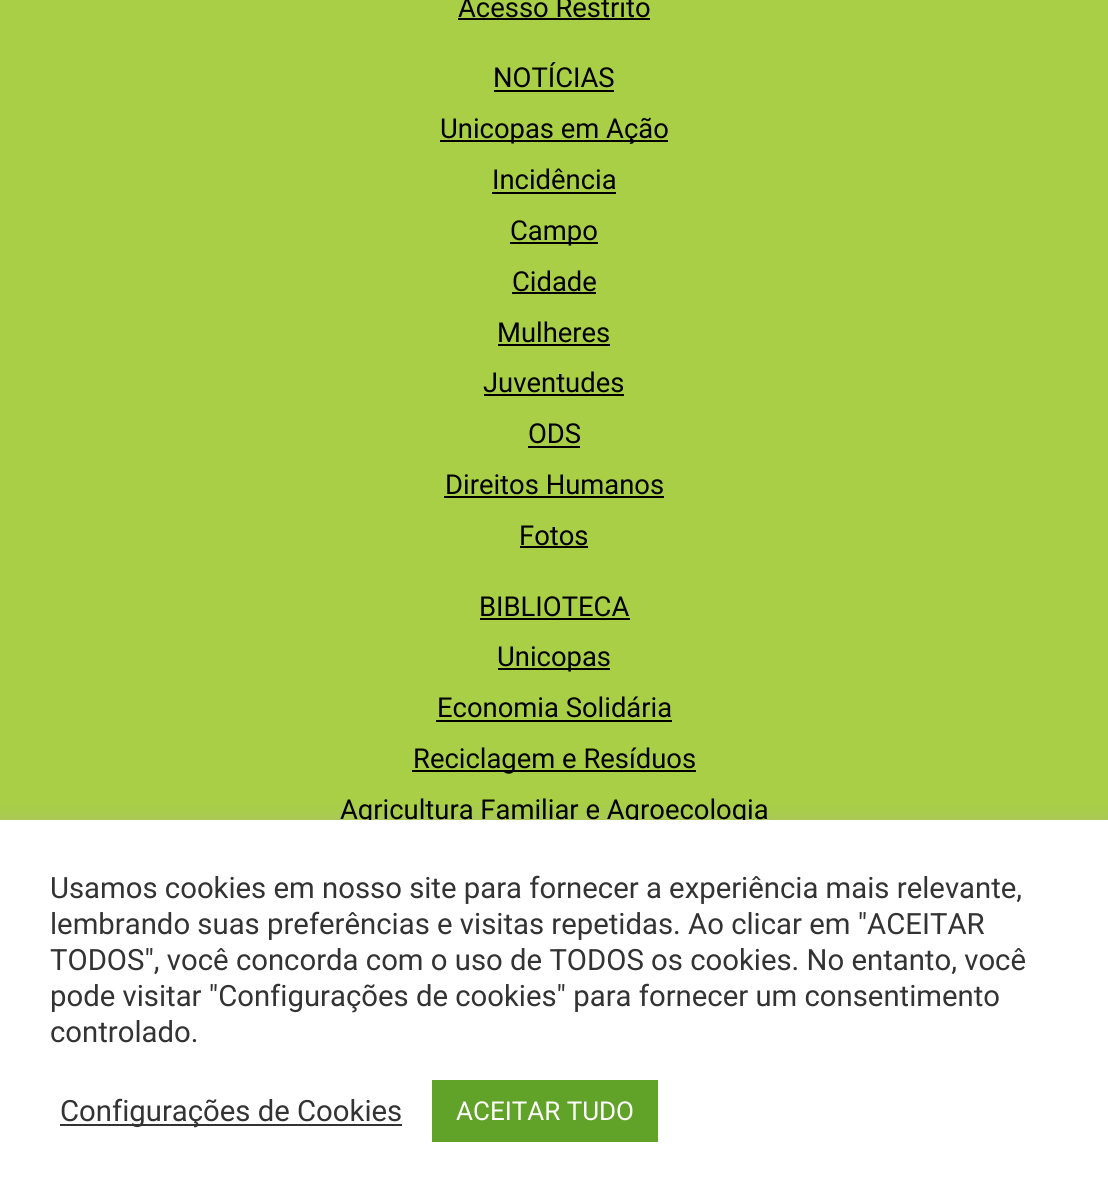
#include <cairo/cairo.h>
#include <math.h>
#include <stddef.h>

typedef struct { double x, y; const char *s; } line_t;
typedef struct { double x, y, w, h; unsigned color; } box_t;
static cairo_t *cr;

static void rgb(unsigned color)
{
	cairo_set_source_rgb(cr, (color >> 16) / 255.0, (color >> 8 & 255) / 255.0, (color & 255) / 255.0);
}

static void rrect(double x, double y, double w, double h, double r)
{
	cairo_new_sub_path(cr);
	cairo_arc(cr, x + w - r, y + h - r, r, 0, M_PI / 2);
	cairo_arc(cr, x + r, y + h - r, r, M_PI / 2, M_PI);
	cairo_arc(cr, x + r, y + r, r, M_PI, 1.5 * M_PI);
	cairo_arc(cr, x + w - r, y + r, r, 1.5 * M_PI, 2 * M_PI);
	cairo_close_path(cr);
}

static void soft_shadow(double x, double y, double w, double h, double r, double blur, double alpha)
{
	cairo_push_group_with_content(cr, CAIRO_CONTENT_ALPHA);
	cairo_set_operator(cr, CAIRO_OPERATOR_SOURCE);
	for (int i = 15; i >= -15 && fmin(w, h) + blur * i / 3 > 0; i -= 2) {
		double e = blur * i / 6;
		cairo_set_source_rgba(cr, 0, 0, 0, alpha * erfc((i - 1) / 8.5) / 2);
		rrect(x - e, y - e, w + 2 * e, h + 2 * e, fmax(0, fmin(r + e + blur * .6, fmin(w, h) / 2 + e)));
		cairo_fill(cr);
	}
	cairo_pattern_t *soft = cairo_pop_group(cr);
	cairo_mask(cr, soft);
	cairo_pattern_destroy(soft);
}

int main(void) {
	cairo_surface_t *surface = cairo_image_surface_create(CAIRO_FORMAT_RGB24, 1108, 1202);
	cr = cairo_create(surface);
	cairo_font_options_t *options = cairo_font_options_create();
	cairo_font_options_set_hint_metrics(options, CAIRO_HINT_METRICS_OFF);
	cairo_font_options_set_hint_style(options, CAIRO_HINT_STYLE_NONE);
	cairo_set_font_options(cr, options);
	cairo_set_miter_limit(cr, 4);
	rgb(0xa8cf45);
	cairo_paint(cr);
	{
		static const box_t items[] = {
			{458, 18, 192, 2, 0x000000},
			{494, 90, 120, 2, 0x000000},
			{440, 140, 228, 2, 0x000000},
			{492, 192, 124, 2, 0x000000},
			{510, 242, 88, 2, 0x000000},
			{512, 292, 84, 2, 0x000000},
			{498, 344, 112, 2, 0x000000},
			{484, 394, 140, 2, 0x000000},
			{528, 446, 52, 2, 0x000000},
			{444, 496, 220, 2, 0x000000},
			{520, 546, 68, 2, 0x000000},
			{480, 618, 150, 2, 0x000000},
			{498, 668, 112, 2, 0x000000},
			{436, 720, 236, 2, 0x000000},
			{412, 770, 284, 2, 0x000000},
		};
		for (size_t i = 0; i < sizeof items / sizeof *items; i++) {
			rgb(items[i].color);
			cairo_rectangle(cr, items[i].x, items[i].y, items[i].w, items[i].h);
			cairo_fill(cr);
		}
	}
	rgb(0xacabab);
	soft_shadow(0, 818, 1108, 382, 0, 10, 0.3);
	cairo_select_font_face(cr, "Roboto", CAIRO_FONT_SLANT_NORMAL, CAIRO_FONT_WEIGHT_NORMAL);
	cairo_set_font_size(cr, 27.4);
	rgb(0x000000);
	{
		static const line_t items[] = {
			{458, 17, "Acesso Restrito"},
			{493, 87, "NOTÍCIAS"},
			{440, 138, "Unicopas em Ação"},
			{492, 189, "Incidência"},
			{510, 240, "Campo"},
			{512, 291, "Cidade"},
			{497, 342, "Mulheres"},
			{483, 392, "Juventudes"},
			{528, 443, "ODS"},
			{445, 494, "Direitos Humanos"},
			{519, 545, "Fotos"},
			{479, 616, "BIBLIOTECA"},
			{497, 666, "Unicopas"},
			{437, 717, "Economia Solidária"},
			{413, 768, "Reciclagem e Resíduos"},
			{340, 819, "Agricultura Familiar e Agroecologia"},
		};
		for (size_t i = 0; i < sizeof items / sizeof *items; i++) {
			cairo_move_to(cr, items[i].x, items[i].y);
			cairo_show_text(cr, items[i].s);
		}
	}
	rgb(0xffffff);
	cairo_rectangle(cr, 0, 820, 1108, 382);
	cairo_fill(cr);
	cairo_set_font_size(cr, 29.3);
	rgb(0x333333);
	{
		static const line_t items[] = {
			{50, 898, "Usamos cookies em nosso site para fornecer a experiência mais relevante,"},
			{50, 934, "lembrando suas preferências e visitas repetidas. Ao clicar em \"ACEITAR"},
			{50, 970, "TODOS\", você concorda com o uso de TODOS os cookies. No entanto, você"},
			{50, 1006, "pode visitar \"Configurações de cookies\" para fornecer um consentimento"},
			{50, 1042, "controlado."},
		};
		for (size_t i = 0; i < sizeof items / sizeof *items; i++) {
			cairo_move_to(cr, items[i].x, items[i].y);
			cairo_show_text(cr, items[i].s);
		}
	}
	cairo_rectangle(cr, 60, 1124, 342, 2);
	cairo_fill(cr);
	cairo_move_to(cr, 60, 1121);
	cairo_show_text(cr, "Configurações de Cookies");
	rgb(0x61a229);
	cairo_rectangle(cr, 432, 1080, 226, 62);
	cairo_fill(cr);
	cairo_set_font_size(cr, 26);
	rgb(0xffffff);
	cairo_move_to(cr, 456, 1120);
	cairo_show_text(cr, "ACEITAR TUDO");
	cairo_surface_write_to_png(surface, "page.png");
	cairo_font_options_destroy(options);
	cairo_destroy(cr);
	cairo_surface_destroy(surface);
	return 0;
}
